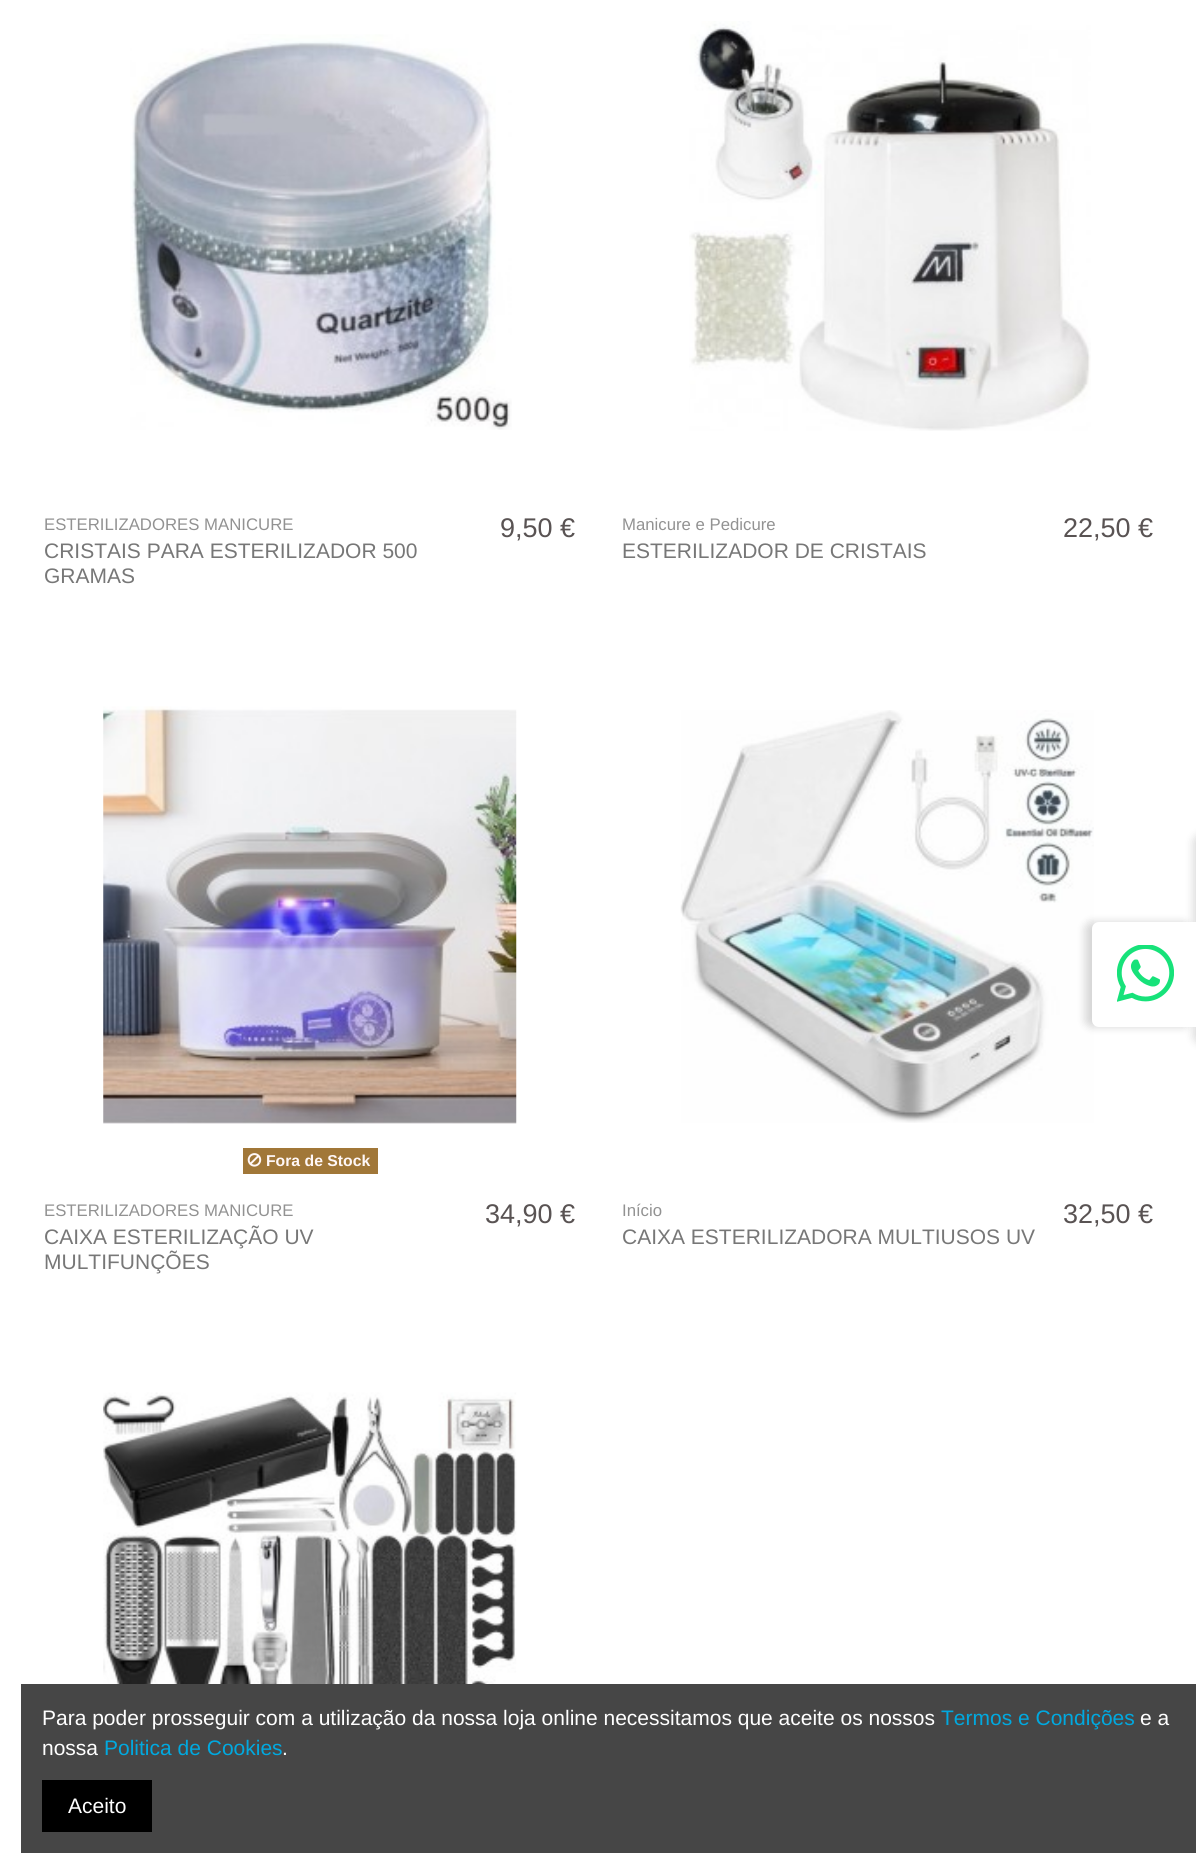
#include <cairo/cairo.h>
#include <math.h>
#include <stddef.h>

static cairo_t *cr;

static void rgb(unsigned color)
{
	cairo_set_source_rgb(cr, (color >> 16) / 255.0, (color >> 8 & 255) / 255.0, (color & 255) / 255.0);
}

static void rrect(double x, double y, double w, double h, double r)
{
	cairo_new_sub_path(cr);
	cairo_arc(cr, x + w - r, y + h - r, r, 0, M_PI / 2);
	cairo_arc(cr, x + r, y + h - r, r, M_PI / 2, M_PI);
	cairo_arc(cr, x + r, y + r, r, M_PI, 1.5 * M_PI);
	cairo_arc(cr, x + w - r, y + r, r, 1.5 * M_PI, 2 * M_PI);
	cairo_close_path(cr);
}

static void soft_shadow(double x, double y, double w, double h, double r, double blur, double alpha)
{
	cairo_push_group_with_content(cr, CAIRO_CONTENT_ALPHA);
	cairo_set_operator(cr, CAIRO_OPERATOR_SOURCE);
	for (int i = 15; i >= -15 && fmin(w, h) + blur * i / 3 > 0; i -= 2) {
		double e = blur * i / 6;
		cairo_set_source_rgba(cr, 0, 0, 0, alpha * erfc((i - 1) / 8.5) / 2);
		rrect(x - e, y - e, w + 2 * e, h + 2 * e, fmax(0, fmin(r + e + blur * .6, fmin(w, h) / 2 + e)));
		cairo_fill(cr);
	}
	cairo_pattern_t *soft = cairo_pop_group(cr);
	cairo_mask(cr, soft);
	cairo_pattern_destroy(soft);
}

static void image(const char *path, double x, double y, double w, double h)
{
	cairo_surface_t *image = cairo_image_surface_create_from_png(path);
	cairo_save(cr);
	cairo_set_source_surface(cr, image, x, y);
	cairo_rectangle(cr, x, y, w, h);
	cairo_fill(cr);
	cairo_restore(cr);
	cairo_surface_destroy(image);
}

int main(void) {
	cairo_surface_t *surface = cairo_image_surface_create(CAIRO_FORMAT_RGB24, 1196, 1873);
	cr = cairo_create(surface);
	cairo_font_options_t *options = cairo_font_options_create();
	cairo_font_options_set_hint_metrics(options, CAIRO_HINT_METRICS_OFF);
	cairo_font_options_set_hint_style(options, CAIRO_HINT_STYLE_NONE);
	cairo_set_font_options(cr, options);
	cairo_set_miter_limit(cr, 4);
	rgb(0xffffff);
	cairo_paint(cr);
	image("img/1.png", 130, 34, 382, 396);
	image("img/2.png", 689, 21, 402, 410);
	image("img/3.png", 103, 706, 414, 418);
	rgb(0xa17738);
	cairo_rectangle(cr, 243, 1148, 135, 26);
	cairo_fill(cr);
	image("img/4.png", 247, 1153, 15, 14);
	image("img/5.png", 680, 710, 414, 413);
	image("img/6.png", 103, 1392, 414, 292);
	rgb(0x000000);
	soft_shadow(1194, 835, 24, 208, 7, 5, 0.16);
	soft_shadow(1085, 922, 105, 105, 7, 4.5, 0.16);
	rgb(0xffffff);
	cairo_new_path(cr);
	cairo_move_to(cr, 1099, 922);
	cairo_line_to(cr, 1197, 922);
	cairo_line_to(cr, 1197, 1027);
	cairo_line_to(cr, 1099, 1027);
	cairo_curve_to(cr, 1095, 1027, 1092, 1024, 1092, 1020);
	cairo_line_to(cr, 1092, 929);
	cairo_curve_to(cr, 1092, 925, 1095, 922, 1099, 922);
	cairo_close_path(cr);
	cairo_fill(cr);
	image("img/7.png", 1117, 945, 57, 57);
	rgb(0x464646);
	cairo_rectangle(cr, 21, 1684, 1175, 169);
	cairo_fill(cr);
	rgb(0x000000);
	cairo_rectangle(cr, 42, 1780, 110, 52);
	cairo_fill(cr);
	cairo_select_font_face(cr, "Liberation Sans", CAIRO_FONT_SLANT_NORMAL, CAIRO_FONT_WEIGHT_NORMAL);
	cairo_set_font_size(cr, 16.75);
	rgb(0x929292);
	cairo_move_to(cr, 44, 530);
	cairo_show_text(cr, "ESTERILIZADORES MANICURE");
	cairo_set_font_size(cr, 21);
	rgb(0x777777);
	cairo_move_to(cr, 44, 558);
	cairo_show_text(cr, "CRISTAIS PARA ESTERILIZADOR 500");
	cairo_move_to(cr, 44, 583);
	cairo_show_text(cr, "GRAMAS");
	cairo_set_font_size(cr, 27);
	rgb(0x595353);
	cairo_move_to(cr, 500, 537);
	cairo_show_text(cr, "9,50 €");
	cairo_set_font_size(cr, 16.75);
	rgb(0x929292);
	cairo_move_to(cr, 622, 530);
	cairo_show_text(cr, "Manicure e Pedicure");
	cairo_set_font_size(cr, 21);
	rgb(0x777777);
	cairo_move_to(cr, 622, 558);
	cairo_show_text(cr, "ESTERILIZADOR DE CRISTAIS");
	cairo_set_font_size(cr, 27);
	rgb(0x595353);
	cairo_move_to(cr, 1063, 537);
	cairo_show_text(cr, "22,50 €");
	cairo_select_font_face(cr, "Liberation Sans", CAIRO_FONT_SLANT_NORMAL, CAIRO_FONT_WEIGHT_BOLD);
	cairo_set_font_size(cr, 15.75);
	rgb(0xfff7f7);
	cairo_move_to(cr, 266, 1166);
	cairo_show_text(cr, "Fora de Stock");
	cairo_select_font_face(cr, "Liberation Sans", CAIRO_FONT_SLANT_NORMAL, CAIRO_FONT_WEIGHT_NORMAL);
	cairo_set_font_size(cr, 16.75);
	rgb(0x929292);
	cairo_move_to(cr, 44, 1216);
	cairo_show_text(cr, "ESTERILIZADORES MANICURE");
	cairo_set_font_size(cr, 21);
	rgb(0x777777);
	cairo_move_to(cr, 44, 1244);
	cairo_show_text(cr, "CAIXA ESTERILIZAÇÃO UV");
	cairo_move_to(cr, 44, 1269);
	cairo_show_text(cr, "MULTIFUNÇÕES");
	cairo_set_font_size(cr, 27);
	rgb(0x595353);
	cairo_move_to(cr, 485, 1223);
	cairo_show_text(cr, "34,90 €");
	cairo_set_font_size(cr, 16.75);
	rgb(0x929292);
	cairo_move_to(cr, 622, 1216);
	cairo_show_text(cr, "Início");
	cairo_set_font_size(cr, 21);
	rgb(0x777777);
	cairo_move_to(cr, 622, 1244);
	cairo_show_text(cr, "CAIXA ESTERILIZADORA MULTIUSOS UV");
	cairo_set_font_size(cr, 27);
	rgb(0x595353);
	cairo_move_to(cr, 1063, 1223);
	cairo_show_text(cr, "32,50 €");
	cairo_set_font_size(cr, 21);
	rgb(0xffffff);
	cairo_move_to(cr, 42, 1725);
	cairo_show_text(cr, "Para poder prosseguir com a utilização da nossa loja online necessitamos que aceite os nossos");
	rgb(0x00a9e0);
	cairo_move_to(cr, 941, 1725);
	cairo_show_text(cr, "Termos e Condições");
	rgb(0xffffff);
	cairo_move_to(cr, 1140, 1725);
	cairo_show_text(cr, "e a");
	cairo_move_to(cr, 42, 1755);
	cairo_show_text(cr, "nossa");
	rgb(0x00a9e0);
	cairo_move_to(cr, 104, 1755);
	cairo_show_text(cr, "Politica de Cookies");
	rgb(0xffffff);
	cairo_move_to(cr, 282, 1755);
	cairo_show_text(cr, ".");
	cairo_move_to(cr, 68, 1813);
	cairo_show_text(cr, "Aceito");
	cairo_surface_write_to_png(surface, "page.png");
	cairo_font_options_destroy(options);
	cairo_destroy(cr);
	cairo_surface_destroy(surface);
	return 0;
}
